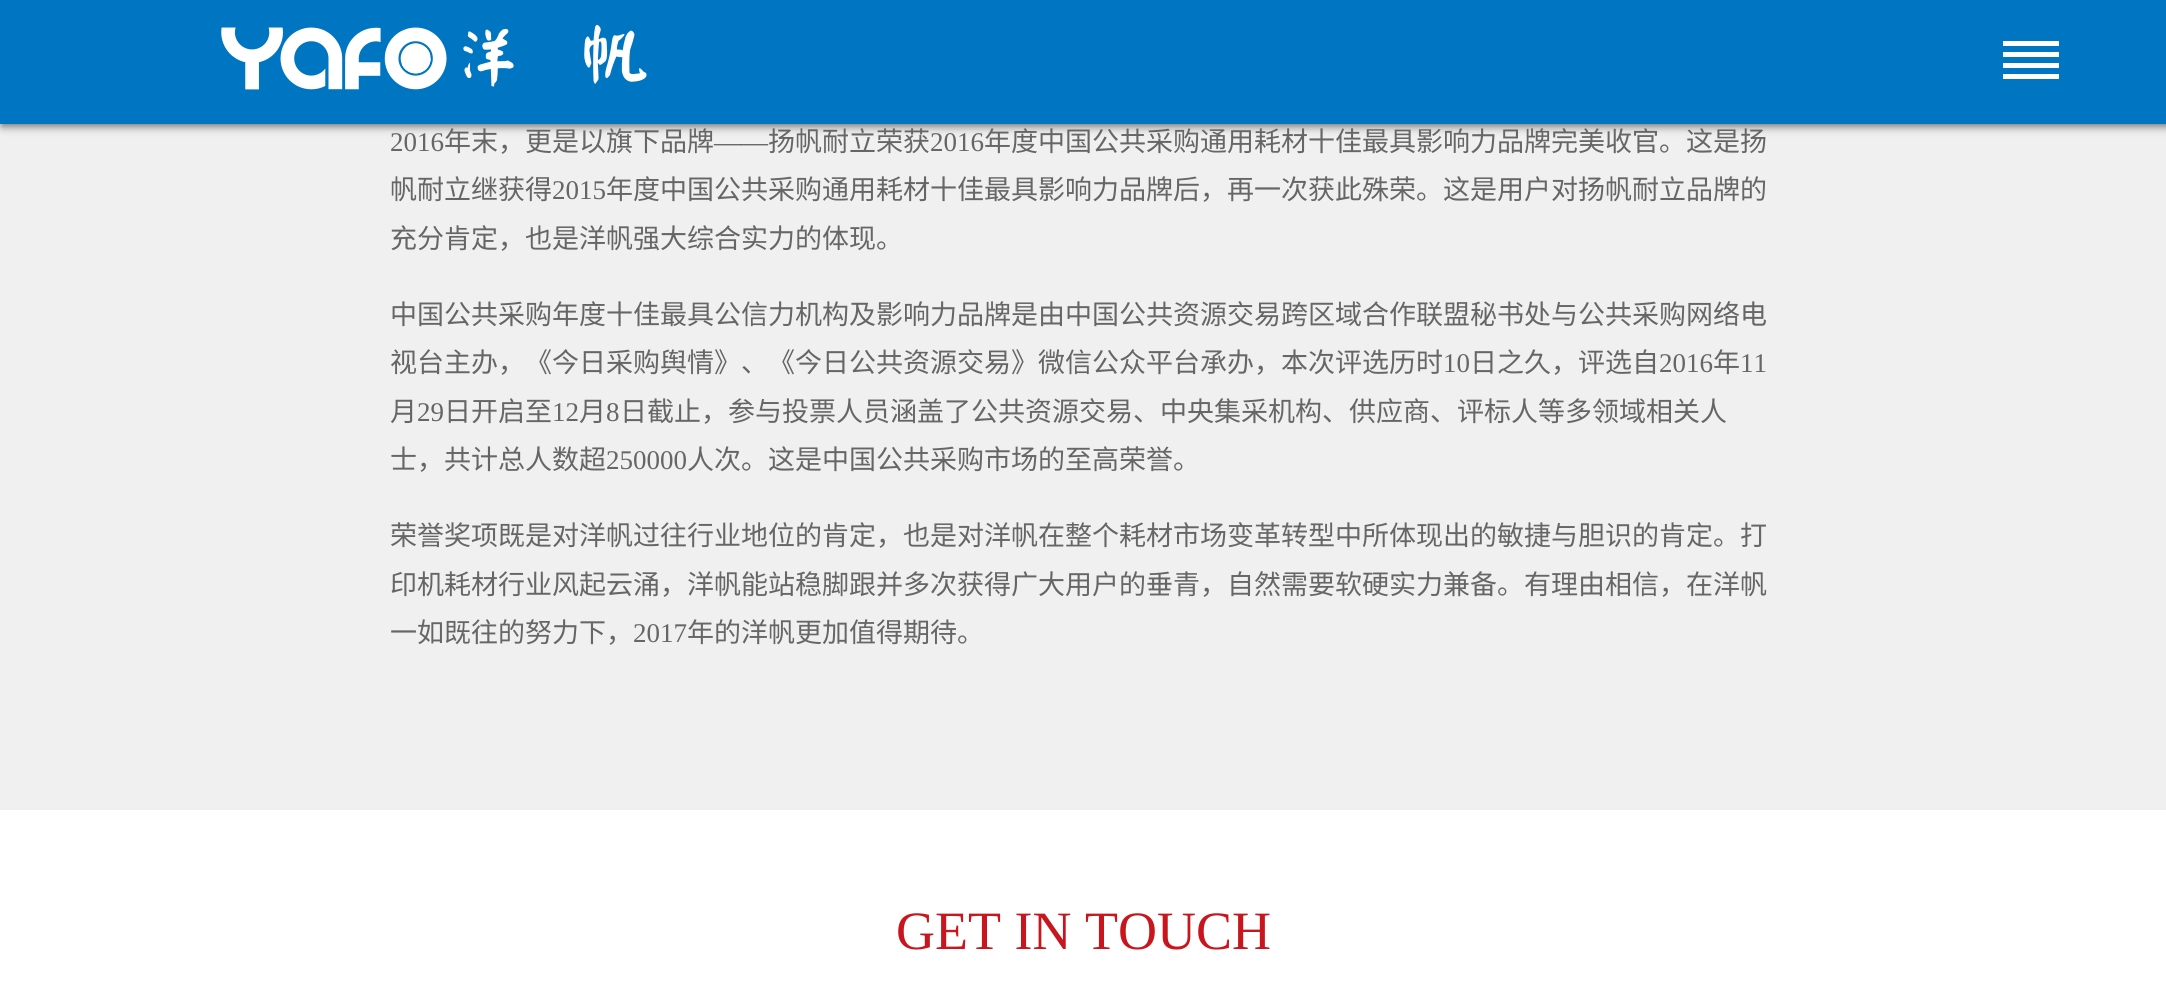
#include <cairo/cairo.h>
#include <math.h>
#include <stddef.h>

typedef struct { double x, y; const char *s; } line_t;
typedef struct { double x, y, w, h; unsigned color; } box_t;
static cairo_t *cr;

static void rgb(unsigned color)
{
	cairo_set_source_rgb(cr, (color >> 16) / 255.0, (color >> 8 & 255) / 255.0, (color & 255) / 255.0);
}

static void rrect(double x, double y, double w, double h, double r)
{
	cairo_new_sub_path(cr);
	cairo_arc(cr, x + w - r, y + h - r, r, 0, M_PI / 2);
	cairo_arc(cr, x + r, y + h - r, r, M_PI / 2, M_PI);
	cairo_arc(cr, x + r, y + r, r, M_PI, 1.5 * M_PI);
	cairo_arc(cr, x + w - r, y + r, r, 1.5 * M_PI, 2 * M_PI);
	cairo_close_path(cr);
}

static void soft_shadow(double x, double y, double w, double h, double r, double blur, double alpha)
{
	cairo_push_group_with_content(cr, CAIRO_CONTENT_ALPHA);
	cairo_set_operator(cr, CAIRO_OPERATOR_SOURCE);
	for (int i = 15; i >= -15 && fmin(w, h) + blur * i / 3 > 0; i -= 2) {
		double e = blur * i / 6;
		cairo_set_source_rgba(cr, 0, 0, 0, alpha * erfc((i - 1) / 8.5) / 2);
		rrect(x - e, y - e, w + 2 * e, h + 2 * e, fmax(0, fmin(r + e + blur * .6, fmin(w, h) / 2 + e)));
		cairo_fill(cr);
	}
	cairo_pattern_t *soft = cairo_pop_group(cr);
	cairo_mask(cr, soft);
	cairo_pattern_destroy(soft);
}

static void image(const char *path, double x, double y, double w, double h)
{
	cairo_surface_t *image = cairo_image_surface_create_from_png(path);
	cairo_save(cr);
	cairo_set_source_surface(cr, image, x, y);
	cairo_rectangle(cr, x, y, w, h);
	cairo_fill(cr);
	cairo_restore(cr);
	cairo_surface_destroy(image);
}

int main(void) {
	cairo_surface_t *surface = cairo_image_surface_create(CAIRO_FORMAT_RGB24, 2166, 1007);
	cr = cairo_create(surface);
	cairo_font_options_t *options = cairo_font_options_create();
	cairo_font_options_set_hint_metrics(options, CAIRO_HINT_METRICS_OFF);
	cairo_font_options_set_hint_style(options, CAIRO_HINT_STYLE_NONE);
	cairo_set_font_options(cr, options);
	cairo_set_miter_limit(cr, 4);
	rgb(0xf0f0f0);
	cairo_paint(cr);
	rgb(0x666666);
	soft_shadow(2, 2, 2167, 124, 0, 4.5, 1);
	rgb(0x0075c2);
	cairo_rectangle(cr, 0, 0, 2166, 124);
	cairo_fill(cr);
	image("img/1.png", 221, 24, 426, 66);
	{
		static const box_t items[] = {
			{2003, 41, 56, 5, 0xffffff},
			{2003, 52, 56, 5, 0xffffff},
			{2003, 63, 56, 5, 0xffffff},
			{2003, 74, 56, 5, 0xffffff},
			{0, 810, 2166, 197, 0xffffff},
		};
		for (size_t i = 0; i < sizeof items / sizeof *items; i++) {
			rgb(items[i].color);
			cairo_rectangle(cr, items[i].x, items[i].y, items[i].w, items[i].h);
			cairo_fill(cr);
		}
	}
	cairo_select_font_face(cr, "Liberation Serif", CAIRO_FONT_SLANT_NORMAL, CAIRO_FONT_WEIGHT_NORMAL);
	cairo_set_font_size(cr, 27);
	rgb(0x666666);
	cairo_move_to(cr, 390, 151);
	cairo_show_text(cr, "2016");
	cairo_select_font_face(cr, "Noto Sans CJK SC", CAIRO_FONT_SLANT_NORMAL, CAIRO_FONT_WEIGHT_NORMAL);
	cairo_move_to(cr, 444, 151);
	cairo_show_text(cr, "年末，更是以旗下品牌");
	cairo_select_font_face(cr, "Liberation Serif", CAIRO_FONT_SLANT_NORMAL, CAIRO_FONT_WEIGHT_NORMAL);
	cairo_move_to(cr, 714, 151);
	cairo_show_text(cr, "——");
	cairo_select_font_face(cr, "Noto Sans CJK SC", CAIRO_FONT_SLANT_NORMAL, CAIRO_FONT_WEIGHT_NORMAL);
	cairo_move_to(cr, 768, 151);
	cairo_show_text(cr, "扬帆耐立荣获");
	cairo_select_font_face(cr, "Liberation Serif", CAIRO_FONT_SLANT_NORMAL, CAIRO_FONT_WEIGHT_NORMAL);
	cairo_move_to(cr, 930, 151);
	cairo_show_text(cr, "2016");
	cairo_select_font_face(cr, "Noto Sans CJK SC", CAIRO_FONT_SLANT_NORMAL, CAIRO_FONT_WEIGHT_NORMAL);
	cairo_move_to(cr, 984, 151);
	cairo_show_text(cr, "年度中国公共采购通用耗材十佳最具影响力品牌完美收官。这是扬");
	cairo_move_to(cr, 390, 199);
	cairo_show_text(cr, "帆耐立继获得");
	cairo_select_font_face(cr, "Liberation Serif", CAIRO_FONT_SLANT_NORMAL, CAIRO_FONT_WEIGHT_NORMAL);
	cairo_move_to(cr, 552, 199);
	cairo_show_text(cr, "2015");
	cairo_select_font_face(cr, "Noto Sans CJK SC", CAIRO_FONT_SLANT_NORMAL, CAIRO_FONT_WEIGHT_NORMAL);
	{
		static const line_t items[] = {
			{606, 199, "年度中国公共采购通用耗材十佳最具影响力品牌后，再一次获此殊荣。这是用户对扬帆耐立品牌的"},
			{390, 248, "充分肯定，也是洋帆强大综合实力的体现。"},
			{390, 324, "中国公共采购年度十佳最具公信力机构及影响力品牌是由中国公共资源交易跨区域合作联盟秘书处与公共采购网络电"},
			{390, 372, "视台主办，《今日采购舆情》、《今日公共资源交易》微信公众平台承办，本次评选历时"},
		};
		for (size_t i = 0; i < sizeof items / sizeof *items; i++) {
			cairo_move_to(cr, items[i].x, items[i].y);
			cairo_show_text(cr, items[i].s);
		}
	}
	cairo_select_font_face(cr, "Liberation Serif", CAIRO_FONT_SLANT_NORMAL, CAIRO_FONT_WEIGHT_NORMAL);
	cairo_move_to(cr, 1443, 372);
	cairo_show_text(cr, "10");
	cairo_select_font_face(cr, "Noto Sans CJK SC", CAIRO_FONT_SLANT_NORMAL, CAIRO_FONT_WEIGHT_NORMAL);
	cairo_move_to(cr, 1470, 372);
	cairo_show_text(cr, "日之久，评选自");
	cairo_select_font_face(cr, "Liberation Serif", CAIRO_FONT_SLANT_NORMAL, CAIRO_FONT_WEIGHT_NORMAL);
	cairo_move_to(cr, 1659, 372);
	cairo_show_text(cr, "2016");
	cairo_select_font_face(cr, "Noto Sans CJK SC", CAIRO_FONT_SLANT_NORMAL, CAIRO_FONT_WEIGHT_NORMAL);
	cairo_move_to(cr, 1713, 372);
	cairo_show_text(cr, "年");
	cairo_select_font_face(cr, "Liberation Serif", CAIRO_FONT_SLANT_NORMAL, CAIRO_FONT_WEIGHT_NORMAL);
	cairo_move_to(cr, 1740, 372);
	cairo_show_text(cr, "11");
	cairo_select_font_face(cr, "Noto Sans CJK SC", CAIRO_FONT_SLANT_NORMAL, CAIRO_FONT_WEIGHT_NORMAL);
	cairo_move_to(cr, 390, 421);
	cairo_show_text(cr, "月");
	cairo_select_font_face(cr, "Liberation Serif", CAIRO_FONT_SLANT_NORMAL, CAIRO_FONT_WEIGHT_NORMAL);
	cairo_move_to(cr, 417, 421);
	cairo_show_text(cr, "29");
	cairo_select_font_face(cr, "Noto Sans CJK SC", CAIRO_FONT_SLANT_NORMAL, CAIRO_FONT_WEIGHT_NORMAL);
	cairo_move_to(cr, 444, 421);
	cairo_show_text(cr, "日开启至");
	cairo_select_font_face(cr, "Liberation Serif", CAIRO_FONT_SLANT_NORMAL, CAIRO_FONT_WEIGHT_NORMAL);
	cairo_move_to(cr, 552, 421);
	cairo_show_text(cr, "12");
	cairo_select_font_face(cr, "Noto Sans CJK SC", CAIRO_FONT_SLANT_NORMAL, CAIRO_FONT_WEIGHT_NORMAL);
	cairo_move_to(cr, 579, 421);
	cairo_show_text(cr, "月");
	cairo_select_font_face(cr, "Liberation Serif", CAIRO_FONT_SLANT_NORMAL, CAIRO_FONT_WEIGHT_NORMAL);
	cairo_move_to(cr, 606, 421);
	cairo_show_text(cr, "8");
	cairo_select_font_face(cr, "Noto Sans CJK SC", CAIRO_FONT_SLANT_NORMAL, CAIRO_FONT_WEIGHT_NORMAL);
	cairo_move_to(cr, 620, 421);
	cairo_show_text(cr, "日截止，参与投票人员涵盖了公共资源交易、中央集采机构、供应商、评标人等多领域相关人");
	cairo_move_to(cr, 390, 469);
	cairo_show_text(cr, "士，共计总人数超");
	cairo_select_font_face(cr, "Liberation Serif", CAIRO_FONT_SLANT_NORMAL, CAIRO_FONT_WEIGHT_NORMAL);
	cairo_move_to(cr, 606, 469);
	cairo_show_text(cr, "250000");
	cairo_select_font_face(cr, "Noto Sans CJK SC", CAIRO_FONT_SLANT_NORMAL, CAIRO_FONT_WEIGHT_NORMAL);
	{
		static const line_t items[] = {
			{687, 469, "人次。这是中国公共采购市场的至高荣誉。"},
			{390, 545, "荣誉奖项既是对洋帆过往行业地位的肯定，也是对洋帆在整个耗材市场变革转型中所体现出的敏捷与胆识的肯定。打"},
			{390, 594, "印机耗材行业风起云涌，洋帆能站稳脚跟并多次获得广大用户的垂青，自然需要软硬实力兼备。有理由相信，在洋帆"},
			{390, 642, "一如既往的努力下，"},
		};
		for (size_t i = 0; i < sizeof items / sizeof *items; i++) {
			cairo_move_to(cr, items[i].x, items[i].y);
			cairo_show_text(cr, items[i].s);
		}
	}
	cairo_select_font_face(cr, "Liberation Serif", CAIRO_FONT_SLANT_NORMAL, CAIRO_FONT_WEIGHT_NORMAL);
	cairo_move_to(cr, 633, 642);
	cairo_show_text(cr, "2017");
	cairo_select_font_face(cr, "Noto Sans CJK SC", CAIRO_FONT_SLANT_NORMAL, CAIRO_FONT_WEIGHT_NORMAL);
	cairo_move_to(cr, 687, 642);
	cairo_show_text(cr, "年的洋帆更加值得期待。");
	cairo_select_font_face(cr, "Liberation Serif", CAIRO_FONT_SLANT_NORMAL, CAIRO_FONT_WEIGHT_NORMAL);
	cairo_set_font_size(cr, 54);
	rgb(0xc8161e);
	cairo_move_to(cr, 896, 949);
	cairo_show_text(cr, "GET IN TOUCH");
	cairo_surface_write_to_png(surface, "page.png");
	cairo_font_options_destroy(options);
	cairo_destroy(cr);
	cairo_surface_destroy(surface);
	return 0;
}
